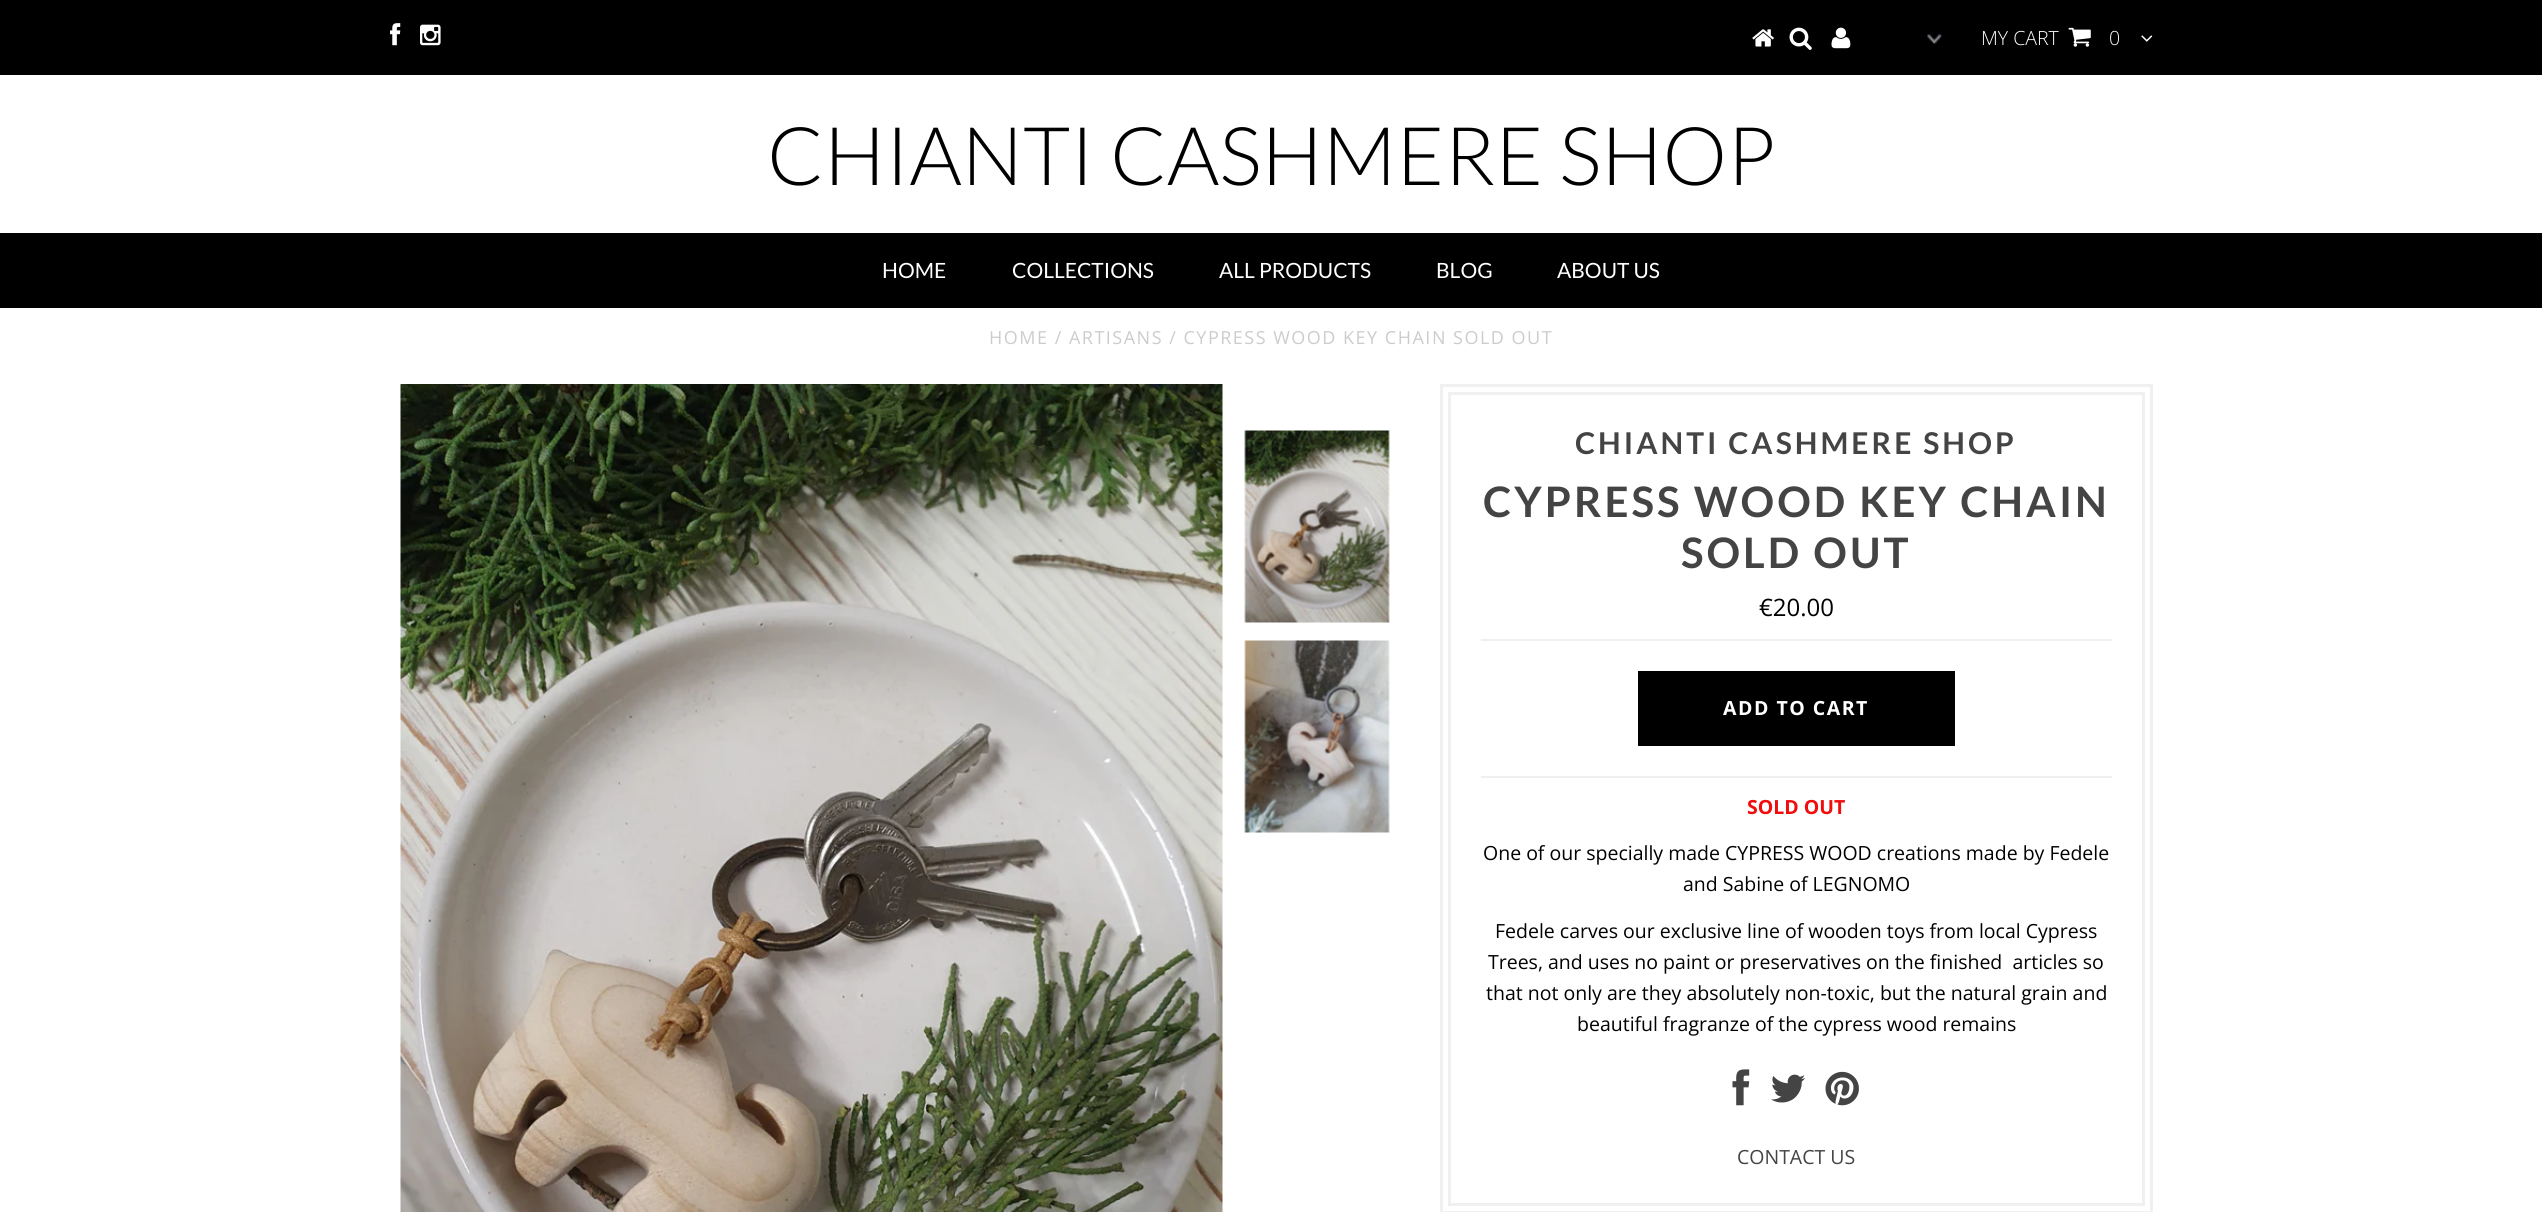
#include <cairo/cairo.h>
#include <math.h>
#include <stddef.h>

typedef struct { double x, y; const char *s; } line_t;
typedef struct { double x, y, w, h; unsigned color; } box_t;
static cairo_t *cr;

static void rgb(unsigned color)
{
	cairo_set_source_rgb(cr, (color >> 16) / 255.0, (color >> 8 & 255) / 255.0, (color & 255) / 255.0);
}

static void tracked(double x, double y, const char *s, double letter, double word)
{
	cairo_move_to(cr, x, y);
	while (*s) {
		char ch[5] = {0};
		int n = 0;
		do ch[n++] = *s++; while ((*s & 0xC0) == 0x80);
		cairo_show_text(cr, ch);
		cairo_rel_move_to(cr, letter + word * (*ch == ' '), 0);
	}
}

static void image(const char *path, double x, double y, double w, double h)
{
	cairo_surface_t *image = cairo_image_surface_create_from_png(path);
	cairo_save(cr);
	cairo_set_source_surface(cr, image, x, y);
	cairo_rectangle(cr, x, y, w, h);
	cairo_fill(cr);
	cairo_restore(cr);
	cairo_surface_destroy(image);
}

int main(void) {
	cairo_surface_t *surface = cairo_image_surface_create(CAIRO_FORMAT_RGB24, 2542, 1212);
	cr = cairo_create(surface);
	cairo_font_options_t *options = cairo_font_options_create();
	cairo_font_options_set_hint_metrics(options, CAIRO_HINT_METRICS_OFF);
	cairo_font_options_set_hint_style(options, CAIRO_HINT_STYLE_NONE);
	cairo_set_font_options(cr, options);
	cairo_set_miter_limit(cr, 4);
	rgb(0xffffff);
	cairo_paint(cr);
	rgb(0x000000);
	cairo_rectangle(cr, 0, 0, 2542, 75);
	cairo_fill(cr);
	image("img/1.png", 390, 23, 11, 23);
	image("img/2.png", 420, 24, 21, 22);
	image("img/3.png", 1752, 29, 22, 18);
	image("img/4.png", 1789, 27, 23, 23);
	image("img/5.png", 1831, 27, 20, 22);
	image("img/6.png", 1927, 34, 15, 10);
	image("img/7.png", 2068, 27, 23, 20);
	image("img/8.png", 2141, 35, 12, 7);
	cairo_rectangle(cr, 0, 233, 2542, 75);
	cairo_fill(cr);
	image("img/9.png", 400, 384, 823, 828);
	image("img/10.png", 1244, 430, 146, 193);
	image("img/11.png", 1244, 640, 146, 193);
	cairo_rectangle(cr, 1441.5, 385.5, 710, 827);
	rgb(0xf0f0f0);
	cairo_set_line_width(cr, 3);
	cairo_stroke(cr);
	cairo_rectangle(cr, 1449.5, 393.5, 694, 811);
	cairo_stroke(cr);
	{
		static const box_t items[] = {
			{1481, 639, 631, 2, 0xf0f0f0},
			{1481, 776, 631, 2, 0xf0f0f0},
			{1638, 671, 317, 75, 0x000000},
		};
		for (size_t i = 0; i < sizeof items / sizeof *items; i++) {
			rgb(items[i].color);
			cairo_rectangle(cr, items[i].x, items[i].y, items[i].w, items[i].h);
			cairo_fill(cr);
		}
	}
	image("img/12.png", 1732, 1069, 18, 37);
	image("img/13.png", 1771, 1074, 35, 29);
	image("img/14.png", 1825, 1071, 34, 35);
	cairo_select_font_face(cr, "Open Sans Light", CAIRO_FONT_SLANT_NORMAL, CAIRO_FONT_WEIGHT_NORMAL);
	cairo_set_font_size(cr, 19.5);
	rgb(0xffffff);
	cairo_move_to(cr, 1981, 45);
	cairo_show_text(cr, "MY CART");
	cairo_move_to(cr, 2109, 45);
	cairo_show_text(cr, "0");
	cairo_select_font_face(cr, "Lato Light", CAIRO_FONT_SLANT_NORMAL, CAIRO_FONT_WEIGHT_NORMAL);
	cairo_set_font_size(cr, 81);
	rgb(0x000000);
	cairo_move_to(cr, 767, 185);
	cairo_show_text(cr, "CHIANTI CASHMERE SHOP");
	cairo_select_font_face(cr, "Lato", CAIRO_FONT_SLANT_NORMAL, CAIRO_FONT_WEIGHT_NORMAL);
	cairo_set_font_size(cr, 21);
	rgb(0xffffff);
	{
		static const line_t items[] = {
			{882, 278, "HOME"},
			{1012, 278, "COLLECTIONS"},
			{1219, 278, "ALL PRODUCTS"},
			{1436, 278, "BLOG"},
			{1557, 278, "ABOUT US"},
		};
		for (size_t i = 0; i < sizeof items / sizeof *items; i++) {
			cairo_move_to(cr, items[i].x, items[i].y);
			cairo_show_text(cr, items[i].s);
		}
	}
	cairo_select_font_face(cr, "Open Sans", CAIRO_FONT_SLANT_NORMAL, CAIRO_FONT_WEIGHT_NORMAL);
	cairo_set_font_size(cr, 18);
	rgb(0xcccccc);
	tracked(989, 344, "HOME / ARTISANS / CYPRESS WOOD KEY CHAIN SOLD OUT", 1.5, 0);
	cairo_select_font_face(cr, "Lato", CAIRO_FONT_SLANT_NORMAL, CAIRO_FONT_WEIGHT_BOLD);
	cairo_set_font_size(cr, 30);
	rgb(0x444444);
	tracked(1575, 454, "CHIANTI CASHMERE SHOP", 3, 0);
	cairo_set_font_size(cr, 42);
	tracked(1483, 517, "CYPRESS WOOD KEY CHAIN", 3, 0);
	tracked(1681, 568, "SOLD OUT", 3, 0);
	cairo_select_font_face(cr, "Open Sans", CAIRO_FONT_SLANT_NORMAL, CAIRO_FONT_WEIGHT_NORMAL);
	cairo_set_font_size(cr, 24);
	rgb(0x000000);
	cairo_move_to(cr, 1759, 616);
	cairo_show_text(cr, "€20.00");
	cairo_select_font_face(cr, "Open Sans", CAIRO_FONT_SLANT_NORMAL, CAIRO_FONT_WEIGHT_BOLD);
	cairo_set_font_size(cr, 19.5);
	rgb(0xffffff);
	tracked(1723, 715, "ADD TO CART", 1.5, 0);
	rgb(0xf10d0d);
	cairo_move_to(cr, 1747, 814);
	cairo_show_text(cr, "SOLD OUT");
	cairo_select_font_face(cr, "Open Sans", CAIRO_FONT_SLANT_NORMAL, CAIRO_FONT_WEIGHT_NORMAL);
	rgb(0x000000);
	{
		static const line_t items[] = {
			{1483, 860, "One of our specially made CYPRESS WOOD creations made by Fedele"},
			{1683, 891, "and Sabine of LEGNOMO"},
			{1495, 938, "Fedele carves our exclusive line of wooden toys from local Cypress"},
			{1488, 969, "Trees, and uses no paint or preservatives on the finished  articles so"},
			{1486, 1000, "that not only are they absolutely non-toxic, but the natural grain and"},
			{1577, 1031, "beautiful fragranze of the cypress wood remains"},
		};
		for (size_t i = 0; i < sizeof items / sizeof *items; i++) {
			cairo_move_to(cr, items[i].x, items[i].y);
			cairo_show_text(cr, items[i].s);
		}
	}
	rgb(0x444444);
	cairo_move_to(cr, 1737, 1164);
	cairo_show_text(cr, "CONTACT US");
	cairo_surface_write_to_png(surface, "page.png");
	cairo_font_options_destroy(options);
	cairo_destroy(cr);
	cairo_surface_destroy(surface);
	return 0;
}
